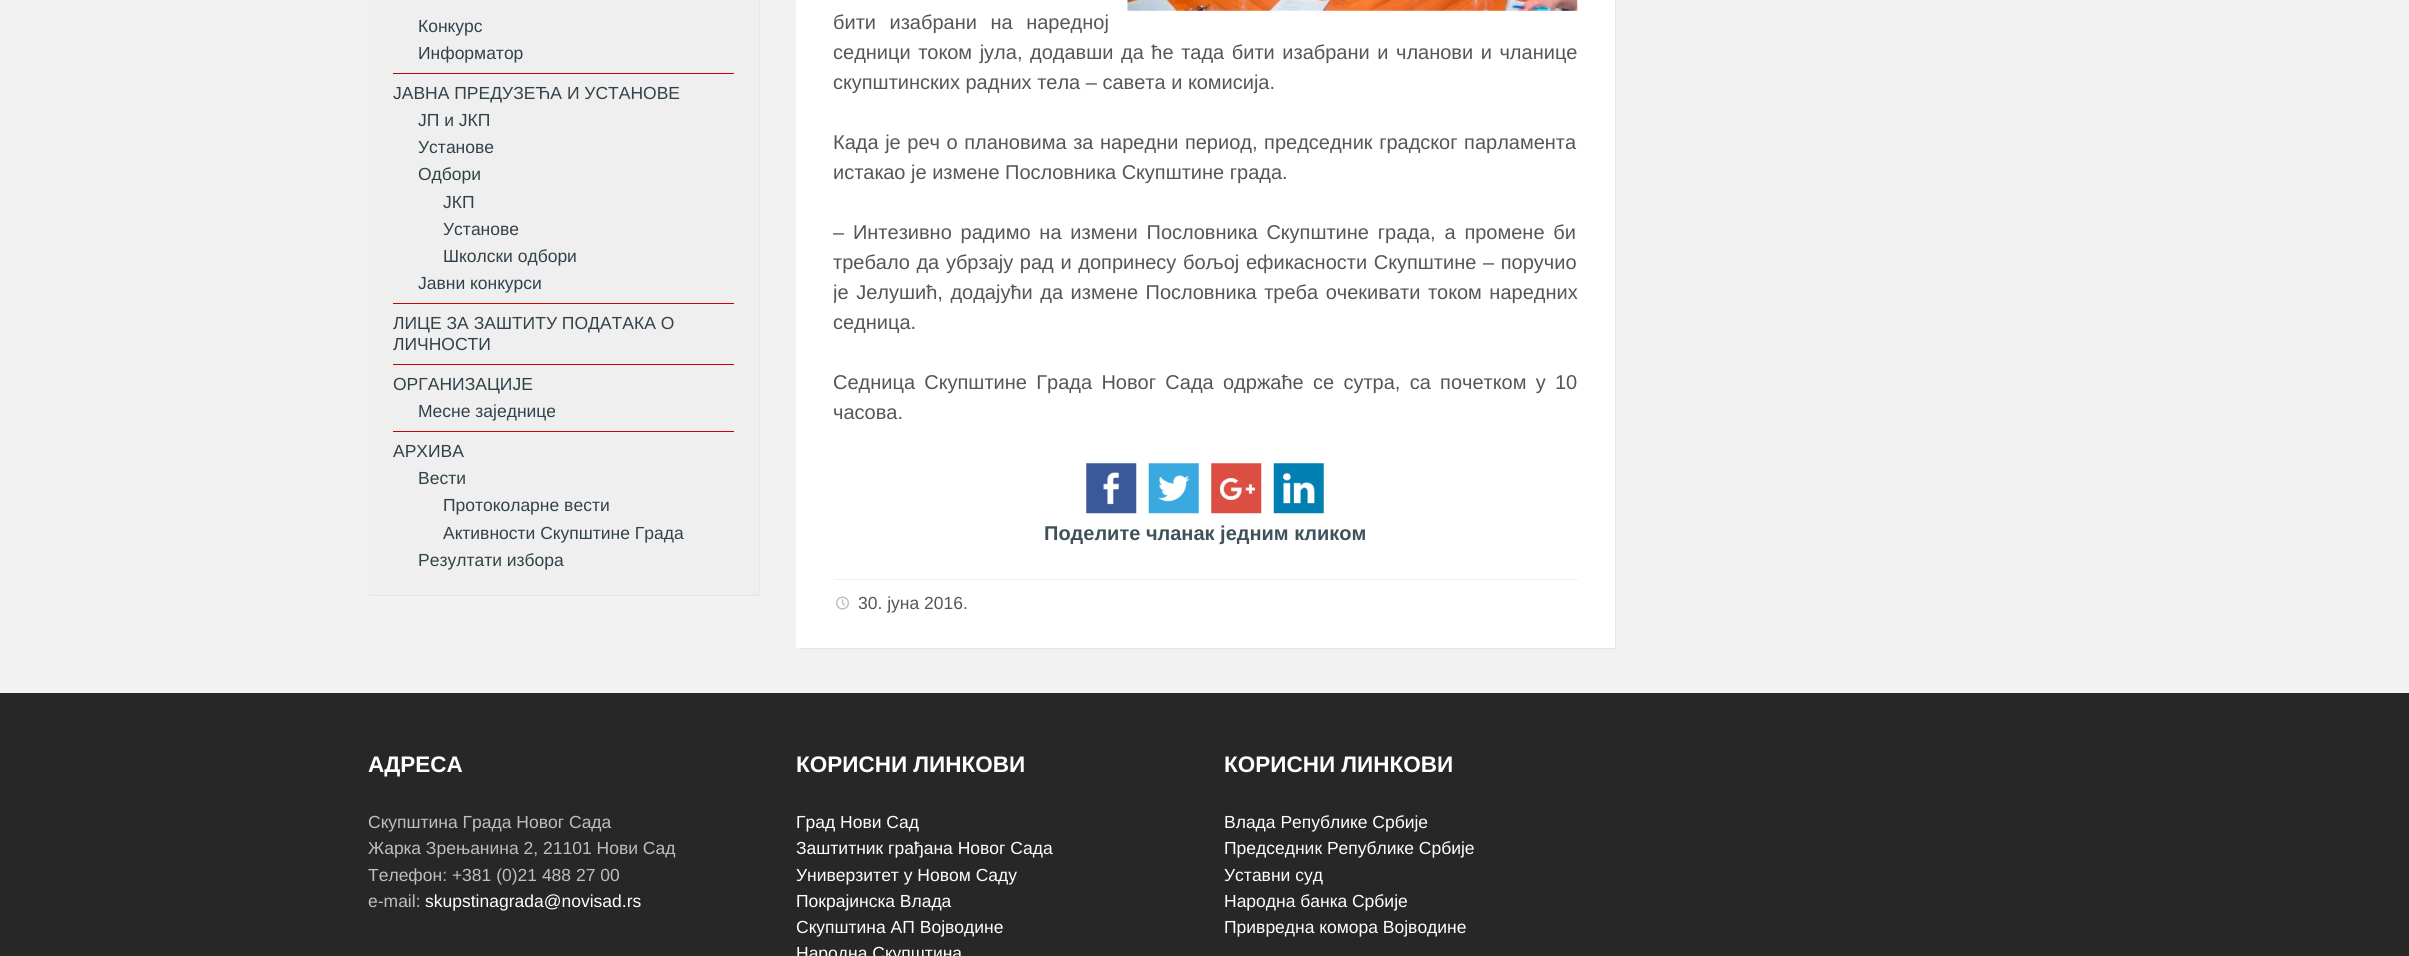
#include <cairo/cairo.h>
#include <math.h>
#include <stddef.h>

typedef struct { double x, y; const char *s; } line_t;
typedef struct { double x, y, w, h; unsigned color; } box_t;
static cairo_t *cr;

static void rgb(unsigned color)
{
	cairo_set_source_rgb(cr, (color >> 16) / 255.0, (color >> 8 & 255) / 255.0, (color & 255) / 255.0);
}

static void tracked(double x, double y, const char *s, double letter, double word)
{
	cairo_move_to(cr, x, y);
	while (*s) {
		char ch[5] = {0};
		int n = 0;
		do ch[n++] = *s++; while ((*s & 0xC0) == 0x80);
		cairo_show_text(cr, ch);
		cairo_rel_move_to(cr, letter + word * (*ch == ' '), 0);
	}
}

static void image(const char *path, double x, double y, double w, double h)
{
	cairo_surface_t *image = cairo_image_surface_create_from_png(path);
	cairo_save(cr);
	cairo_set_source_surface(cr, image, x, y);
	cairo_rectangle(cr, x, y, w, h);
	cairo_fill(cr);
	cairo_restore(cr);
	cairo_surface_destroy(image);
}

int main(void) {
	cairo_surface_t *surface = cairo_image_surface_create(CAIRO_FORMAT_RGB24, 2409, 956);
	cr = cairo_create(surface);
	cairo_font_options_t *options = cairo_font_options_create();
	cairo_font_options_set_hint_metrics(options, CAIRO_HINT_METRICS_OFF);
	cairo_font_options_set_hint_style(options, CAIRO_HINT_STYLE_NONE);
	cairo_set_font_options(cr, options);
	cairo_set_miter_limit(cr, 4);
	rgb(0xf2f2f2);
	cairo_paint(cr);
	rgb(0xe6e6e6);
	cairo_new_path(cr);
	cairo_move_to(cr, 369, 595);
	cairo_line_to(cr, 369, 596);
	cairo_line_to(cr, 760, 596);
	cairo_line_to(cr, 760, -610);
	cairo_line_to(cr, 759, -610);
	cairo_line_to(cr, 759, 595);
	cairo_close_path(cr);
	cairo_fill(cr);
	{
		static const box_t items[] = {
			{368, 0, 391, 595, 0xefefef},
			{393, 73, 341, 1, 0xcc0000},
			{393, 303, 341, 1, 0xcc0000},
			{393, 364, 341, 1, 0xcc0000},
			{393, 431, 341, 1, 0xcc0000},
		};
		for (size_t i = 0; i < sizeof items / sizeof *items; i++) {
			rgb(items[i].color);
			cairo_rectangle(cr, items[i].x, items[i].y, items[i].w, items[i].h);
			cairo_fill(cr);
		}
	}
	rgb(0xe6e6e6);
	cairo_new_path(cr);
	cairo_move_to(cr, 798, 648);
	cairo_line_to(cr, 798, 649);
	cairo_line_to(cr, 1616, 649);
	cairo_line_to(cr, 1616, -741);
	cairo_line_to(cr, 1615, -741);
	cairo_line_to(cr, 1615, 648);
	cairo_close_path(cr);
	cairo_fill(cr);
	rgb(0xffffff);
	cairo_rectangle(cr, 796, 0, 819, 648);
	cairo_fill(cr);
	image("img/1.png", 1127, 0, 451, 11);
	image("img/2.png", 1086, 463, 51, 51);
	image("img/3.png", 1148, 463, 51, 51);
	image("img/4.png", 1211, 463, 51, 51);
	image("img/5.png", 1273, 463, 51, 51);
	rgb(0xf0f0f0);
	cairo_rectangle(cr, 834, 579, 744, 1);
	cairo_fill(cr);
	image("img/6.png", 836, 596, 13, 14);
	rgb(0x272727);
	cairo_rectangle(cr, 0, 693, 2409, 263);
	cairo_fill(cr);
	cairo_select_font_face(cr, "Liberation Sans", CAIRO_FONT_SLANT_NORMAL, CAIRO_FONT_WEIGHT_NORMAL);
	cairo_set_font_size(cr, 17.5);
	rgb(0x324249);
	{
		static const line_t items[] = {
			{418, 32, "Конкурс"},
			{418, 59, "Информатор"},
			{393, 99, "ЈАВНА ПРЕДУЗЕЋА И УСТАНОВЕ"},
			{418, 126, "ЈП и ЈКП"},
			{418, 153, "Установе"},
			{418, 180, "Одбори"},
			{443, 208, "ЈКП"},
			{443, 235, "Установе"},
			{443, 262, "Школски одбори"},
			{418, 289, "Јавни конкурси"},
			{393, 329, "ЛИЦЕ ЗА ЗАШТИТУ ПОДАТАКА О"},
			{393, 350, "ЛИЧНОСТИ"},
			{393, 390, "ОРГАНИЗАЦИЈЕ"},
			{418, 417, "Месне заједнице"},
			{393, 457, "АРХИВА"},
			{418, 484, "Вести"},
			{443, 511, "Протоколарне вести"},
			{443, 539, "Активности Скупштине Града"},
			{418, 566, "Резултати избора"},
		};
		for (size_t i = 0; i < sizeof items / sizeof *items; i++) {
			cairo_move_to(cr, items[i].x, items[i].y);
			cairo_show_text(cr, items[i].s);
		}
	}
	cairo_set_font_size(cr, 20);
	rgb(0x565656);
	tracked(833, 29, "бити изабрани на наредној", 0, 8);
	tracked(833, 59, "седници током јула, додавши да ће тада бити изабрани и чланови и чланице", 0, 2);
	cairo_move_to(cr, 833, 89);
	cairo_show_text(cr, "скупштинских радних тела – савета и комисија.");
	tracked(833, 149, "Када је реч о плановима за наредни период, председник градског парламента", 0, 1);
	cairo_move_to(cr, 833, 179);
	cairo_show_text(cr, "истакао је измене Пословника Скупштине града.");
	tracked(833, 239, "– Интезивно радимо на измени Пословника Скупштине града, а промене би", 0, 3.25);
	tracked(833, 269, "требало да убрзају рад и допринесу бољој ефикасности Скупштине – поручио", 0, 1.1);
	cairo_save(cr);
	cairo_rectangle(cr, 834, 0, 744, 578);
	cairo_clip(cr);
	tracked(833, 299, "је Јелушић, додајући да измене Пословника треба очекивати током наредних", 0, 2);
	cairo_restore(cr);
	cairo_move_to(cr, 833, 329);
	cairo_show_text(cr, "седница.");
	tracked(833, 389, "Седница Скупштине Града Новог Сада одржаће се сутра, са почетком у 10", 0, 3.75);
	cairo_move_to(cr, 833, 419);
	cairo_show_text(cr, "часова.");
	cairo_select_font_face(cr, "Liberation Sans", CAIRO_FONT_SLANT_NORMAL, CAIRO_FONT_WEIGHT_BOLD);
	rgb(0x3f525b);
	cairo_move_to(cr, 1044, 540);
	cairo_show_text(cr, "Поделите чланак једним кликом");
	cairo_select_font_face(cr, "Liberation Sans", CAIRO_FONT_SLANT_NORMAL, CAIRO_FONT_WEIGHT_NORMAL);
	cairo_set_font_size(cr, 17.5);
	rgb(0x565656);
	cairo_move_to(cr, 858, 609);
	cairo_show_text(cr, "30. јуна 2016.");
	cairo_select_font_face(cr, "Liberation Sans", CAIRO_FONT_SLANT_NORMAL, CAIRO_FONT_WEIGHT_BOLD);
	cairo_set_font_size(cr, 22.5);
	rgb(0xffffff);
	cairo_move_to(cr, 368, 772);
	cairo_show_text(cr, "АДРЕСА");
	cairo_select_font_face(cr, "Liberation Sans", CAIRO_FONT_SLANT_NORMAL, CAIRO_FONT_WEIGHT_NORMAL);
	cairo_set_font_size(cr, 17.5);
	rgb(0xbebebe);
	{
		static const line_t items[] = {
			{368, 828, "Скупштина Града Новог Сада"},
			{368, 854, "Жарка Зрењанина 2, 21101 Нови Сад"},
			{368, 881, "Телефон: +381 (0)21 488 27 00"},
			{368, 907, "е-mail:"},
		};
		for (size_t i = 0; i < sizeof items / sizeof *items; i++) {
			cairo_move_to(cr, items[i].x, items[i].y);
			cairo_show_text(cr, items[i].s);
		}
	}
	rgb(0xffffff);
	cairo_move_to(cr, 425, 907);
	cairo_show_text(cr, "skupstinagrada@novisad.rs");
	cairo_select_font_face(cr, "Liberation Sans", CAIRO_FONT_SLANT_NORMAL, CAIRO_FONT_WEIGHT_BOLD);
	cairo_set_font_size(cr, 22.5);
	cairo_move_to(cr, 796, 772);
	cairo_show_text(cr, "КОРИСНИ ЛИНКОВИ");
	cairo_select_font_face(cr, "Liberation Sans", CAIRO_FONT_SLANT_NORMAL, CAIRO_FONT_WEIGHT_NORMAL);
	cairo_set_font_size(cr, 17.5);
	{
		static const line_t items[] = {
			{796, 828, "Град Нови Сад"},
			{796, 854, "Заштитник грађана Новог Сада"},
			{796, 881, "Универзитет у Новом Саду"},
			{796, 907, "Покрајинска Влада"},
			{796, 933, "Скупштина АП Војводине"},
			{796, 959, "Народна Скупштина"},
		};
		for (size_t i = 0; i < sizeof items / sizeof *items; i++) {
			cairo_move_to(cr, items[i].x, items[i].y);
			cairo_show_text(cr, items[i].s);
		}
	}
	cairo_select_font_face(cr, "Liberation Sans", CAIRO_FONT_SLANT_NORMAL, CAIRO_FONT_WEIGHT_BOLD);
	cairo_set_font_size(cr, 22.5);
	cairo_move_to(cr, 1224, 772);
	cairo_show_text(cr, "КОРИСНИ ЛИНКОВИ");
	cairo_select_font_face(cr, "Liberation Sans", CAIRO_FONT_SLANT_NORMAL, CAIRO_FONT_WEIGHT_NORMAL);
	cairo_set_font_size(cr, 17.5);
	{
		static const line_t items[] = {
			{1224, 828, "Влада Републике Србије"},
			{1224, 854, "Председник Републике Србије"},
			{1224, 881, "Уставни суд"},
			{1224, 907, "Народна банка Србије"},
			{1224, 933, "Привредна комора Војводине"},
		};
		for (size_t i = 0; i < sizeof items / sizeof *items; i++) {
			cairo_move_to(cr, items[i].x, items[i].y);
			cairo_show_text(cr, items[i].s);
		}
	}
	cairo_surface_write_to_png(surface, "page.png");
	cairo_font_options_destroy(options);
	cairo_destroy(cr);
	cairo_surface_destroy(surface);
	return 0;
}
